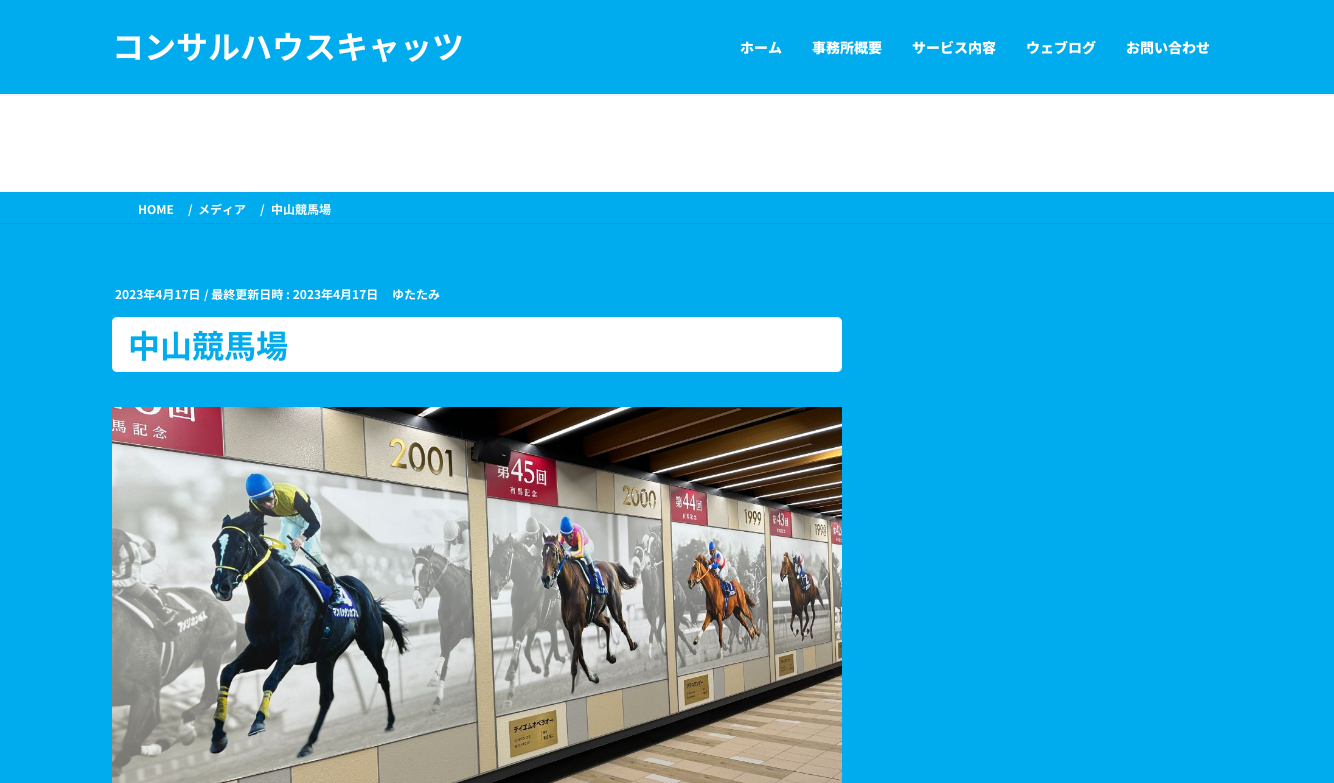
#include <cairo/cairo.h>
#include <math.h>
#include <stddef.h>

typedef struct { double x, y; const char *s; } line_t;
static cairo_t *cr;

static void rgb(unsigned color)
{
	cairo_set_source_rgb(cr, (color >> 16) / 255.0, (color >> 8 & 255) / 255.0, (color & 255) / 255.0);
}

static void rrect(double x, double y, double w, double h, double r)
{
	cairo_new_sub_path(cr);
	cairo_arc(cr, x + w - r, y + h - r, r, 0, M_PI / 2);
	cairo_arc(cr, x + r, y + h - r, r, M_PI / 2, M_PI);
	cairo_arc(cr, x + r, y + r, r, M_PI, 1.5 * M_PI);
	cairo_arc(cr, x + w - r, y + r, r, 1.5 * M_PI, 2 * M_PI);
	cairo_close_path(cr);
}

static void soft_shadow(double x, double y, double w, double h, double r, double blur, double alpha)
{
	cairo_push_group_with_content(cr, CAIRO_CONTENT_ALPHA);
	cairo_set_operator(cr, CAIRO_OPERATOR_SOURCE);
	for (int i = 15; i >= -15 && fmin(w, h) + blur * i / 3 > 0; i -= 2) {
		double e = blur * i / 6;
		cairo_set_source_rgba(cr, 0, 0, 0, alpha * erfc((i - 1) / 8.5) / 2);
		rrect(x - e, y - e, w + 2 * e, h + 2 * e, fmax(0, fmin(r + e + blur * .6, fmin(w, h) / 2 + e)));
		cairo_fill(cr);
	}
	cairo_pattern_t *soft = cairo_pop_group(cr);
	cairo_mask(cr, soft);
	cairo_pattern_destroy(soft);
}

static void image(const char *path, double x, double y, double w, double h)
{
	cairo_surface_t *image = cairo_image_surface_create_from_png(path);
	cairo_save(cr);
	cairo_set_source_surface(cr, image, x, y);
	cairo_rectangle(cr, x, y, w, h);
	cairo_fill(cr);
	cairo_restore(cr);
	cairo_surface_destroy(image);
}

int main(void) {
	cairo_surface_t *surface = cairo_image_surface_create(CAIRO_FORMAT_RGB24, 1334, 783);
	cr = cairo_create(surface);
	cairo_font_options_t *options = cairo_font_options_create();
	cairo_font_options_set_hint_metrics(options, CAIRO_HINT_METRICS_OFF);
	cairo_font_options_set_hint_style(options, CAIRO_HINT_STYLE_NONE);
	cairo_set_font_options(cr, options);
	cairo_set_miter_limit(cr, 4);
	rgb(0x00aced);
	cairo_paint(cr);
	rgb(0xffffff);
	cairo_rectangle(cr, 0, 94, 1334, 98);
	cairo_fill(cr);
	cairo_save(cr);
	cairo_rectangle(cr, 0, 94, 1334, 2);
	cairo_clip(cr);
	rgb(0x000000);
	soft_shadow(0, 1, 1334, 94, 0, 1.5, 0.1);
	cairo_restore(cr);
	rgb(0x00a3e1);
	cairo_rectangle(cr, 0, 223, 1334, 1);
	cairo_fill(cr);
	rgb(0xffffff);
	rrect(112, 317, 730, 55, 5);
	cairo_fill(cr);
	image("img/1.png", 112, 407, 730, 376);
	cairo_select_font_face(cr, "Noto Sans JP", CAIRO_FONT_SLANT_NORMAL, CAIRO_FONT_WEIGHT_BOLD);
	cairo_set_font_size(cr, 32);
	cairo_move_to(cr, 112, 59);
	cairo_show_text(cr, "コンサルハウスキャッツ");
	cairo_select_font_face(cr, "Noto Sans JP Black", CAIRO_FONT_SLANT_NORMAL, CAIRO_FONT_WEIGHT_NORMAL);
	cairo_set_font_size(cr, 14);
	{
		static const line_t items[] = {
			{740, 53, "ホーム"},
			{812, 53, "事務所概要"},
			{912, 53, "サービス内容"},
			{1026, 53, "ウェブログ"},
			{1126, 53, "お問い合わせ"},
		};
		for (size_t i = 0; i < sizeof items / sizeof *items; i++) {
			cairo_move_to(cr, items[i].x, items[i].y);
			cairo_show_text(cr, items[i].s);
		}
	}
	cairo_select_font_face(cr, "Noto Sans JP", CAIRO_FONT_SLANT_NORMAL, CAIRO_FONT_WEIGHT_BOLD);
	cairo_set_font_size(cr, 12);
	{
		static const line_t items[] = {
			{138, 214, "HOME"},
			{188, 214, "/"},
			{198, 214, "メディア"},
			{260, 214, "/"},
			{271, 214, "中山競馬場"},
			{115, 299, "2023年4月17日"},
			{204, 299, "/ 最終更新日時 : 2023年4月17日"},
			{392, 299, "ゆたたみ"},
		};
		for (size_t i = 0; i < sizeof items / sizeof *items; i++) {
			cairo_move_to(cr, items[i].x, items[i].y);
			cairo_show_text(cr, items[i].s);
		}
	}
	cairo_set_font_size(cr, 32);
	rgb(0x00aced);
	cairo_move_to(cr, 128, 358);
	cairo_show_text(cr, "中山競馬場");
	cairo_surface_write_to_png(surface, "page.png");
	cairo_font_options_destroy(options);
	cairo_destroy(cr);
	cairo_surface_destroy(surface);
	return 0;
}
